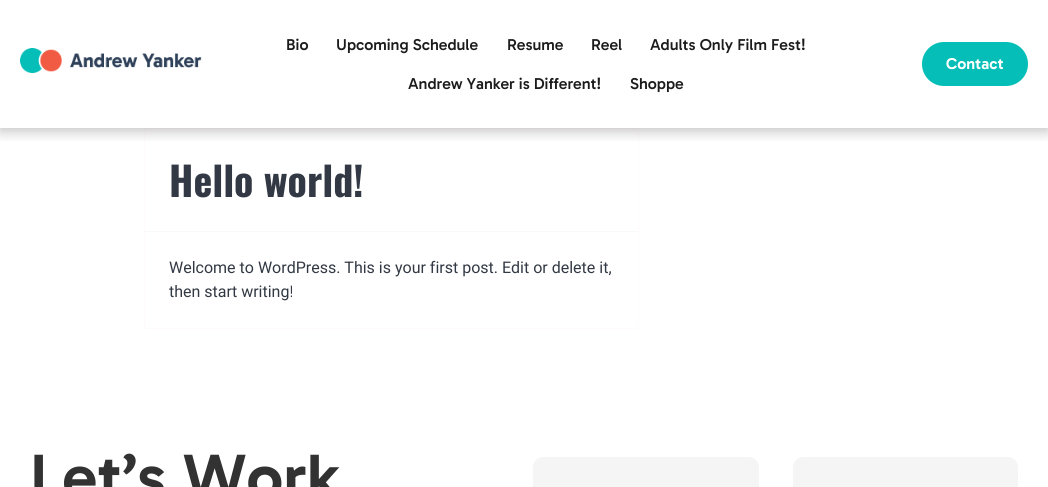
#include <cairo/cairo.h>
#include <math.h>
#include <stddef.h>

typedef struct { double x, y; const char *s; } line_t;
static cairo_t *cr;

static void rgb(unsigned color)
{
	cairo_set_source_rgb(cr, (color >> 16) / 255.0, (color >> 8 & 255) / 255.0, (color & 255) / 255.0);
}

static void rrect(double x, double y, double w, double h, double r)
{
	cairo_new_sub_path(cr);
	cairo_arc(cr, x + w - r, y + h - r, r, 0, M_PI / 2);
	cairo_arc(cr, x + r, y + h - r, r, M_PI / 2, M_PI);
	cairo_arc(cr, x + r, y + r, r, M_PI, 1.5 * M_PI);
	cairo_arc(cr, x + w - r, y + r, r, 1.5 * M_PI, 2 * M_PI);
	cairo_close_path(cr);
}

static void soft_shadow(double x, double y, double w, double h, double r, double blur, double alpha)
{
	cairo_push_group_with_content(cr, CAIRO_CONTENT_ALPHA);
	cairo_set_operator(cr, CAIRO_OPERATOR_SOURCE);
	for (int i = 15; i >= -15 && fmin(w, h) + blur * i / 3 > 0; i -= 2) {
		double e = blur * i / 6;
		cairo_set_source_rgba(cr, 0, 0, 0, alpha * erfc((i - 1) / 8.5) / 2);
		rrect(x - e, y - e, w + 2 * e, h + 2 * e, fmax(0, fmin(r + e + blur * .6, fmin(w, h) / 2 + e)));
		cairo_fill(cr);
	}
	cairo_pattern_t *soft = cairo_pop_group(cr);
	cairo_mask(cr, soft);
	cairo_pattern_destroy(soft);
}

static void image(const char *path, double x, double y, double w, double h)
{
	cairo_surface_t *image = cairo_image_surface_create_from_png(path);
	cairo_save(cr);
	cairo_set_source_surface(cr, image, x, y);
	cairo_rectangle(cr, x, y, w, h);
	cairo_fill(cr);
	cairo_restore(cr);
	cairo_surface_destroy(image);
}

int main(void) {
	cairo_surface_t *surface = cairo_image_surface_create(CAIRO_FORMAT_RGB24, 1048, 487);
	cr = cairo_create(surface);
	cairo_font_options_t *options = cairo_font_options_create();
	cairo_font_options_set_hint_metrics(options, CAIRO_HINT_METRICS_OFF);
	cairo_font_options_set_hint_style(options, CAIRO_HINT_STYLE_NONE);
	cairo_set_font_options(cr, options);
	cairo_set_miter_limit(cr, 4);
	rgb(0xffffff);
	cairo_paint(cr);
	rrect(144.5, 128.5, 494, 200, 2.5);
	rgb(0xfffafb);
	cairo_set_line_width(cr, 1);
	cairo_stroke(cr);
	cairo_save(cr);
	cairo_rectangle(cr, 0, 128, 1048, 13);
	cairo_clip(cr);
	rgb(0x000000);
	soft_shadow(0, 3, 1048, 128, 0, 7, 0.25);
	cairo_restore(cr);
	image("img/1.png", 20, 48, 182, 25);
	rgb(0x04beb7);
	rrect(923, 43, 104, 42, 21);
	cairo_fill_preserve(cr);
	cairo_set_line_width(cr, 2);
	cairo_stroke(cr);
	rgb(0xf8f9fa);
	cairo_rectangle(cr, 145, 231, 493, 1);
	cairo_fill(cr);
	rgb(0xf5f5f5);
	rrect(533, 457, 226, 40, 10);
	cairo_fill(cr);
	rrect(793, 457, 225, 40, 10);
	cairo_fill(cr);
	cairo_select_font_face(cr, "Gabarito Medium", CAIRO_FONT_SLANT_NORMAL, CAIRO_FONT_WEIGHT_NORMAL);
	cairo_set_font_size(cr, 16);
	rgb(0x1c1c1c);
	{
		static const line_t items[] = {
			{286, 50, "Bio"},
			{336, 50, "Upcoming Schedule"},
			{507, 50, "Resume"},
			{591, 50, "Reel"},
			{650, 50, "Adults Only Film Fest!"},
			{408, 89, "Andrew Yanker is Different!"},
			{630, 89, "Shoppe"},
		};
		for (size_t i = 0; i < sizeof items / sizeof *items; i++) {
			cairo_move_to(cr, items[i].x, items[i].y);
			cairo_show_text(cr, items[i].s);
		}
	}
	cairo_select_font_face(cr, "Gabarito SemiBold", CAIRO_FONT_SLANT_NORMAL, CAIRO_FONT_WEIGHT_NORMAL);
	rgb(0xffffff);
	cairo_move_to(cr, 946, 69);
	cairo_show_text(cr, "Contact");
	cairo_select_font_face(cr, "Oswald", CAIRO_FONT_SLANT_NORMAL, CAIRO_FONT_WEIGHT_BOLD);
	cairo_set_font_size(cr, 40);
	rgb(0x323944);
	cairo_move_to(cr, 169, 197);
	cairo_show_text(cr, "Hello world!");
	cairo_select_font_face(cr, "Roboto", CAIRO_FONT_SLANT_NORMAL, CAIRO_FONT_WEIGHT_NORMAL);
	cairo_set_font_size(cr, 16);
	cairo_move_to(cr, 169, 273);
	cairo_show_text(cr, "Welcome to WordPress. This is your first post. Edit or delete it,");
	cairo_move_to(cr, 169, 297);
	cairo_show_text(cr, "then start writing!");
	cairo_select_font_face(cr, "Gabarito SemiBold", CAIRO_FONT_SLANT_NORMAL, CAIRO_FONT_WEIGHT_NORMAL);
	cairo_set_font_size(cr, 65);
	rgb(0x323232);
	cairo_move_to(cr, 30, 499);
	cairo_show_text(cr, "Let’s Work");
	cairo_surface_write_to_png(surface, "page.png");
	cairo_font_options_destroy(options);
	cairo_destroy(cr);
	cairo_surface_destroy(surface);
	return 0;
}
